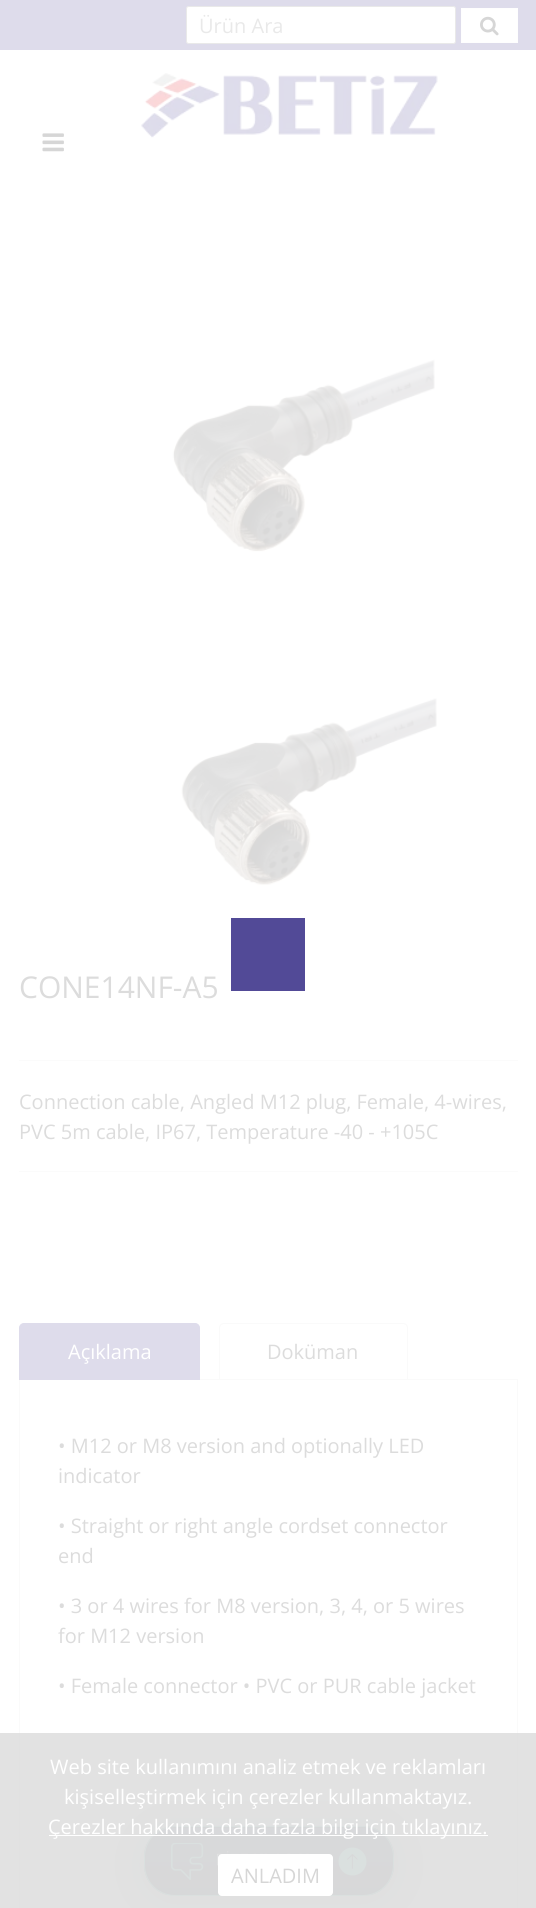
#include <cairo/cairo.h>
#include <math.h>
#include <stddef.h>

typedef struct { double x, y; const char *s; } line_t;
typedef struct { double x, y, w, h; unsigned color; } box_t;
static cairo_t *cr;

static void rgb(unsigned color)
{
	cairo_set_source_rgb(cr, (color >> 16) / 255.0, (color >> 8 & 255) / 255.0, (color & 255) / 255.0);
}

static void rrect(double x, double y, double w, double h, double r)
{
	cairo_new_sub_path(cr);
	cairo_arc(cr, x + w - r, y + h - r, r, 0, M_PI / 2);
	cairo_arc(cr, x + r, y + h - r, r, M_PI / 2, M_PI);
	cairo_arc(cr, x + r, y + r, r, M_PI, 1.5 * M_PI);
	cairo_arc(cr, x + w - r, y + r, r, 1.5 * M_PI, 2 * M_PI);
	cairo_close_path(cr);
}

static void soft_shadow(double x, double y, double w, double h, double r, double blur, double alpha)
{
	cairo_push_group_with_content(cr, CAIRO_CONTENT_ALPHA);
	cairo_set_operator(cr, CAIRO_OPERATOR_SOURCE);
	for (int i = 15; i >= -15 && fmin(w, h) + blur * i / 3 > 0; i -= 2) {
		double e = blur * i / 6;
		cairo_set_source_rgba(cr, 0, 0, 0, alpha * erfc((i - 1) / 8.5) / 2);
		rrect(x - e, y - e, w + 2 * e, h + 2 * e, fmax(0, fmin(r + e + blur * .6, fmin(w, h) / 2 + e)));
		cairo_fill(cr);
	}
	cairo_pattern_t *soft = cairo_pop_group(cr);
	cairo_mask(cr, soft);
	cairo_pattern_destroy(soft);
}

static void image(const char *path, double x, double y, double w, double h)
{
	cairo_surface_t *image = cairo_image_surface_create_from_png(path);
	cairo_save(cr);
	cairo_set_source_surface(cr, image, x, y);
	cairo_rectangle(cr, x, y, w, h);
	cairo_fill(cr);
	cairo_restore(cr);
	cairo_surface_destroy(image);
}

int main(void) {
	cairo_surface_t *surface = cairo_image_surface_create(CAIRO_FORMAT_RGB24, 536, 1908);
	cr = cairo_create(surface);
	cairo_font_options_t *options = cairo_font_options_create();
	cairo_font_options_set_hint_metrics(options, CAIRO_HINT_METRICS_OFF);
	cairo_font_options_set_hint_style(options, CAIRO_HINT_STYLE_NONE);
	cairo_set_font_options(cr, options);
	cairo_set_miter_limit(cr, 4);
	cairo_pattern_t *gradient;
	rgb(0xffffff);
	cairo_paint(cr);
	rgb(0xdedceb);
	cairo_rectangle(cr, 0, 0, 536, 50);
	cairo_fill(cr);
	rgb(0xffffff);
	rrect(186.5, 6.5, 269, 37, 2);
	cairo_fill_preserve(cr);
	rgb(0xe9e9e9);
	cairo_set_line_width(cr, 1);
	cairo_stroke(cr);
	rgb(0xffffff);
	cairo_rectangle(cr, 461.5, 8.5, 56, 34);
	cairo_fill_preserve(cr);
	rgb(0xfefefe);
	cairo_stroke(cr);
	image("img/1.png", 480, 16, 19, 20);
	image("img/2.png", 141, 73, 297, 65);
	image("img/3.png", 42, 133, 22, 19);
	{
		static const box_t items[] = {
			{231, 918, 74, 23, 0x524a97},
			{231, 941, 74, 25, 0x524a97},
			{231, 966, 74, 25, 0x524a97},
		};
		for (size_t i = 0; i < sizeof items / sizeof *items; i++) {
			rgb(items[i].color);
			cairo_rectangle(cr, items[i].x, items[i].y, items[i].w, items[i].h);
			cairo_fill(cr);
		}
	}
	image("img/4.png", 172, 359, 263, 193);
	image("img/5.png", 181, 698, 256, 188);
	rgb(0xfbfbfb);
	cairo_rectangle(cr, 19, 1060, 499, 1);
	cairo_fill(cr);
	cairo_rectangle(cr, 19, 1171, 499, 1);
	cairo_fill(cr);
	cairo_rectangle(cr, 19.5, 1379.5, 498, 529);
	rgb(0xfafafa);
	cairo_stroke(cr);
	rgb(0xdedceb);
	cairo_new_path(cr);
	cairo_move_to(cr, 24, 1323.5);
	cairo_line_to(cr, 195, 1323.5);
	cairo_curve_to(cr, 197.5, 1323.5, 199.5, 1325.5, 199.5, 1328);
	cairo_line_to(cr, 199.5, 1379.5);
	cairo_line_to(cr, 19.5, 1379.5);
	cairo_line_to(cr, 19.5, 1328);
	cairo_curve_to(cr, 19.5, 1325.5, 21.5, 1323.5, 24, 1323.5);
	cairo_close_path(cr);
	cairo_fill_preserve(cr);
	cairo_stroke(cr);
	cairo_new_path(cr);
	cairo_move_to(cr, 224, 1323.5);
	cairo_line_to(cr, 403, 1323.5);
	cairo_curve_to(cr, 405.5, 1323.5, 407.5, 1325.5, 407.5, 1328);
	cairo_line_to(cr, 407.5, 1379.5);
	cairo_line_to(cr, 219.5, 1379.5);
	cairo_line_to(cr, 219.5, 1328);
	cairo_curve_to(cr, 219.5, 1325.5, 221.5, 1323.5, 224, 1323.5);
	cairo_close_path(cr);
	rgb(0xfafafa);
	cairo_stroke(cr);
	rgb(0xdfe2e5);
	soft_shadow(144, 1830, 250, 70, 31, 25, 0.5);
	cairo_save(cr);
	rrect(144, 1826, 250, 70, 31);
	cairo_clip(cr);
	gradient = cairo_pattern_create_linear(269, 1760, 269, 1828);
	cairo_pattern_add_color_stop_rgba(gradient, 0, 0.875, 0.886, 0.902, 1);
	cairo_pattern_add_color_stop_rgba(gradient, 1, 0.859, 0.867, 0.878, 1);
	cairo_set_source(cr, gradient);
	cairo_pattern_destroy(gradient);
	cairo_rectangle(cr, 164, 1826, 210, 2);
	cairo_fill(cr);
	gradient = cairo_pattern_create_linear(269, 1828, 269, 1895);
	cairo_pattern_add_color_stop_rgba(gradient, 0, 0.875, 0.886, 0.902, 1);
	cairo_pattern_add_color_stop_rgba(gradient, 1, 0.859, 0.867, 0.878, 1);
	cairo_set_source(cr, gradient);
	cairo_pattern_destroy(gradient);
	cairo_rectangle(cr, 144, 1828, 250, 67);
	cairo_fill(cr);
	cairo_restore(cr);
	rrect(144.5, 1826.5, 249, 69, 30.5);
	rgb(0xe5f7f5);
	cairo_stroke(cr);
	image("img/6.png", 171, 1843, 196, 37);
	cairo_set_source_rgba(cr, 0.839, 0.839, 0.839, 0.7);
	cairo_rectangle(cr, 0, 1733, 536, 175);
	cairo_fill(cr);
	rgb(0xffffff);
	cairo_rectangle(cr, 49, 1835, 439, 1);
	cairo_fill(cr);
	rrect(218, 1854, 115, 42, 4);
	cairo_fill(cr);
	cairo_select_font_face(cr, "Open Sans", CAIRO_FONT_SLANT_NORMAL, CAIRO_FONT_WEIGHT_NORMAL);
	cairo_set_font_size(cr, 20);
	rgb(0xe9e9e9);
	cairo_move_to(cr, 199, 33);
	cairo_show_text(cr, "Ürün Ara");
	cairo_set_font_size(cr, 30);
	rgb(0xdcdcdc);
	cairo_move_to(cr, 19, 998);
	cairo_show_text(cr, "CONE14NF-A5");
	cairo_set_font_size(cr, 20);
	cairo_move_to(cr, 19, 1109);
	cairo_show_text(cr, "Connection cable, Angled M12 plug, Female, 4-wires,");
	cairo_move_to(cr, 19, 1139);
	cairo_show_text(cr, "PVC 5m cable, IP67, Temperature -40 - +105C");
	rgb(0xffffff);
	cairo_move_to(cr, 68, 1359);
	cairo_show_text(cr, "Açıklama");
	rgb(0xdcdcdc);
	{
		static const line_t items[] = {
			{267, 1359, "Doküman"},
			{58, 1453, "• M12 or M8 version and optionally LED"},
			{58, 1483, "indicator"},
			{58, 1533, "• Straight or right angle cordset connector"},
			{58, 1563, "end"},
			{58, 1613, "• 3 or 4 wires for M8 version, 3, 4, or 5 wires"},
			{58, 1643, "for M12 version"},
			{58, 1693, "• Female connector • PVC or PUR cable jacket"},
		};
		for (size_t i = 0; i < sizeof items / sizeof *items; i++) {
			cairo_move_to(cr, items[i].x, items[i].y);
			cairo_show_text(cr, items[i].s);
		}
	}
	rgb(0xffffff);
	{
		static const line_t items[] = {
			{50, 1774, "Web site kullanımını analiz etmek ve reklamları"},
			{64, 1804, "kişiselleştirmek için çerezler kullanmaktayız."},
			{48, 1834, "Çerezler hakkında daha fazla bilgi için tıklayınız."},
		};
		for (size_t i = 0; i < sizeof items / sizeof *items; i++) {
			cairo_move_to(cr, items[i].x, items[i].y);
			cairo_show_text(cr, items[i].s);
		}
	}
	rgb(0xd6d6d6);
	cairo_move_to(cr, 231, 1883);
	cairo_show_text(cr, "ANLADIM");
	cairo_surface_write_to_png(surface, "page.png");
	cairo_font_options_destroy(options);
	cairo_destroy(cr);
	cairo_surface_destroy(surface);
	return 0;
}
